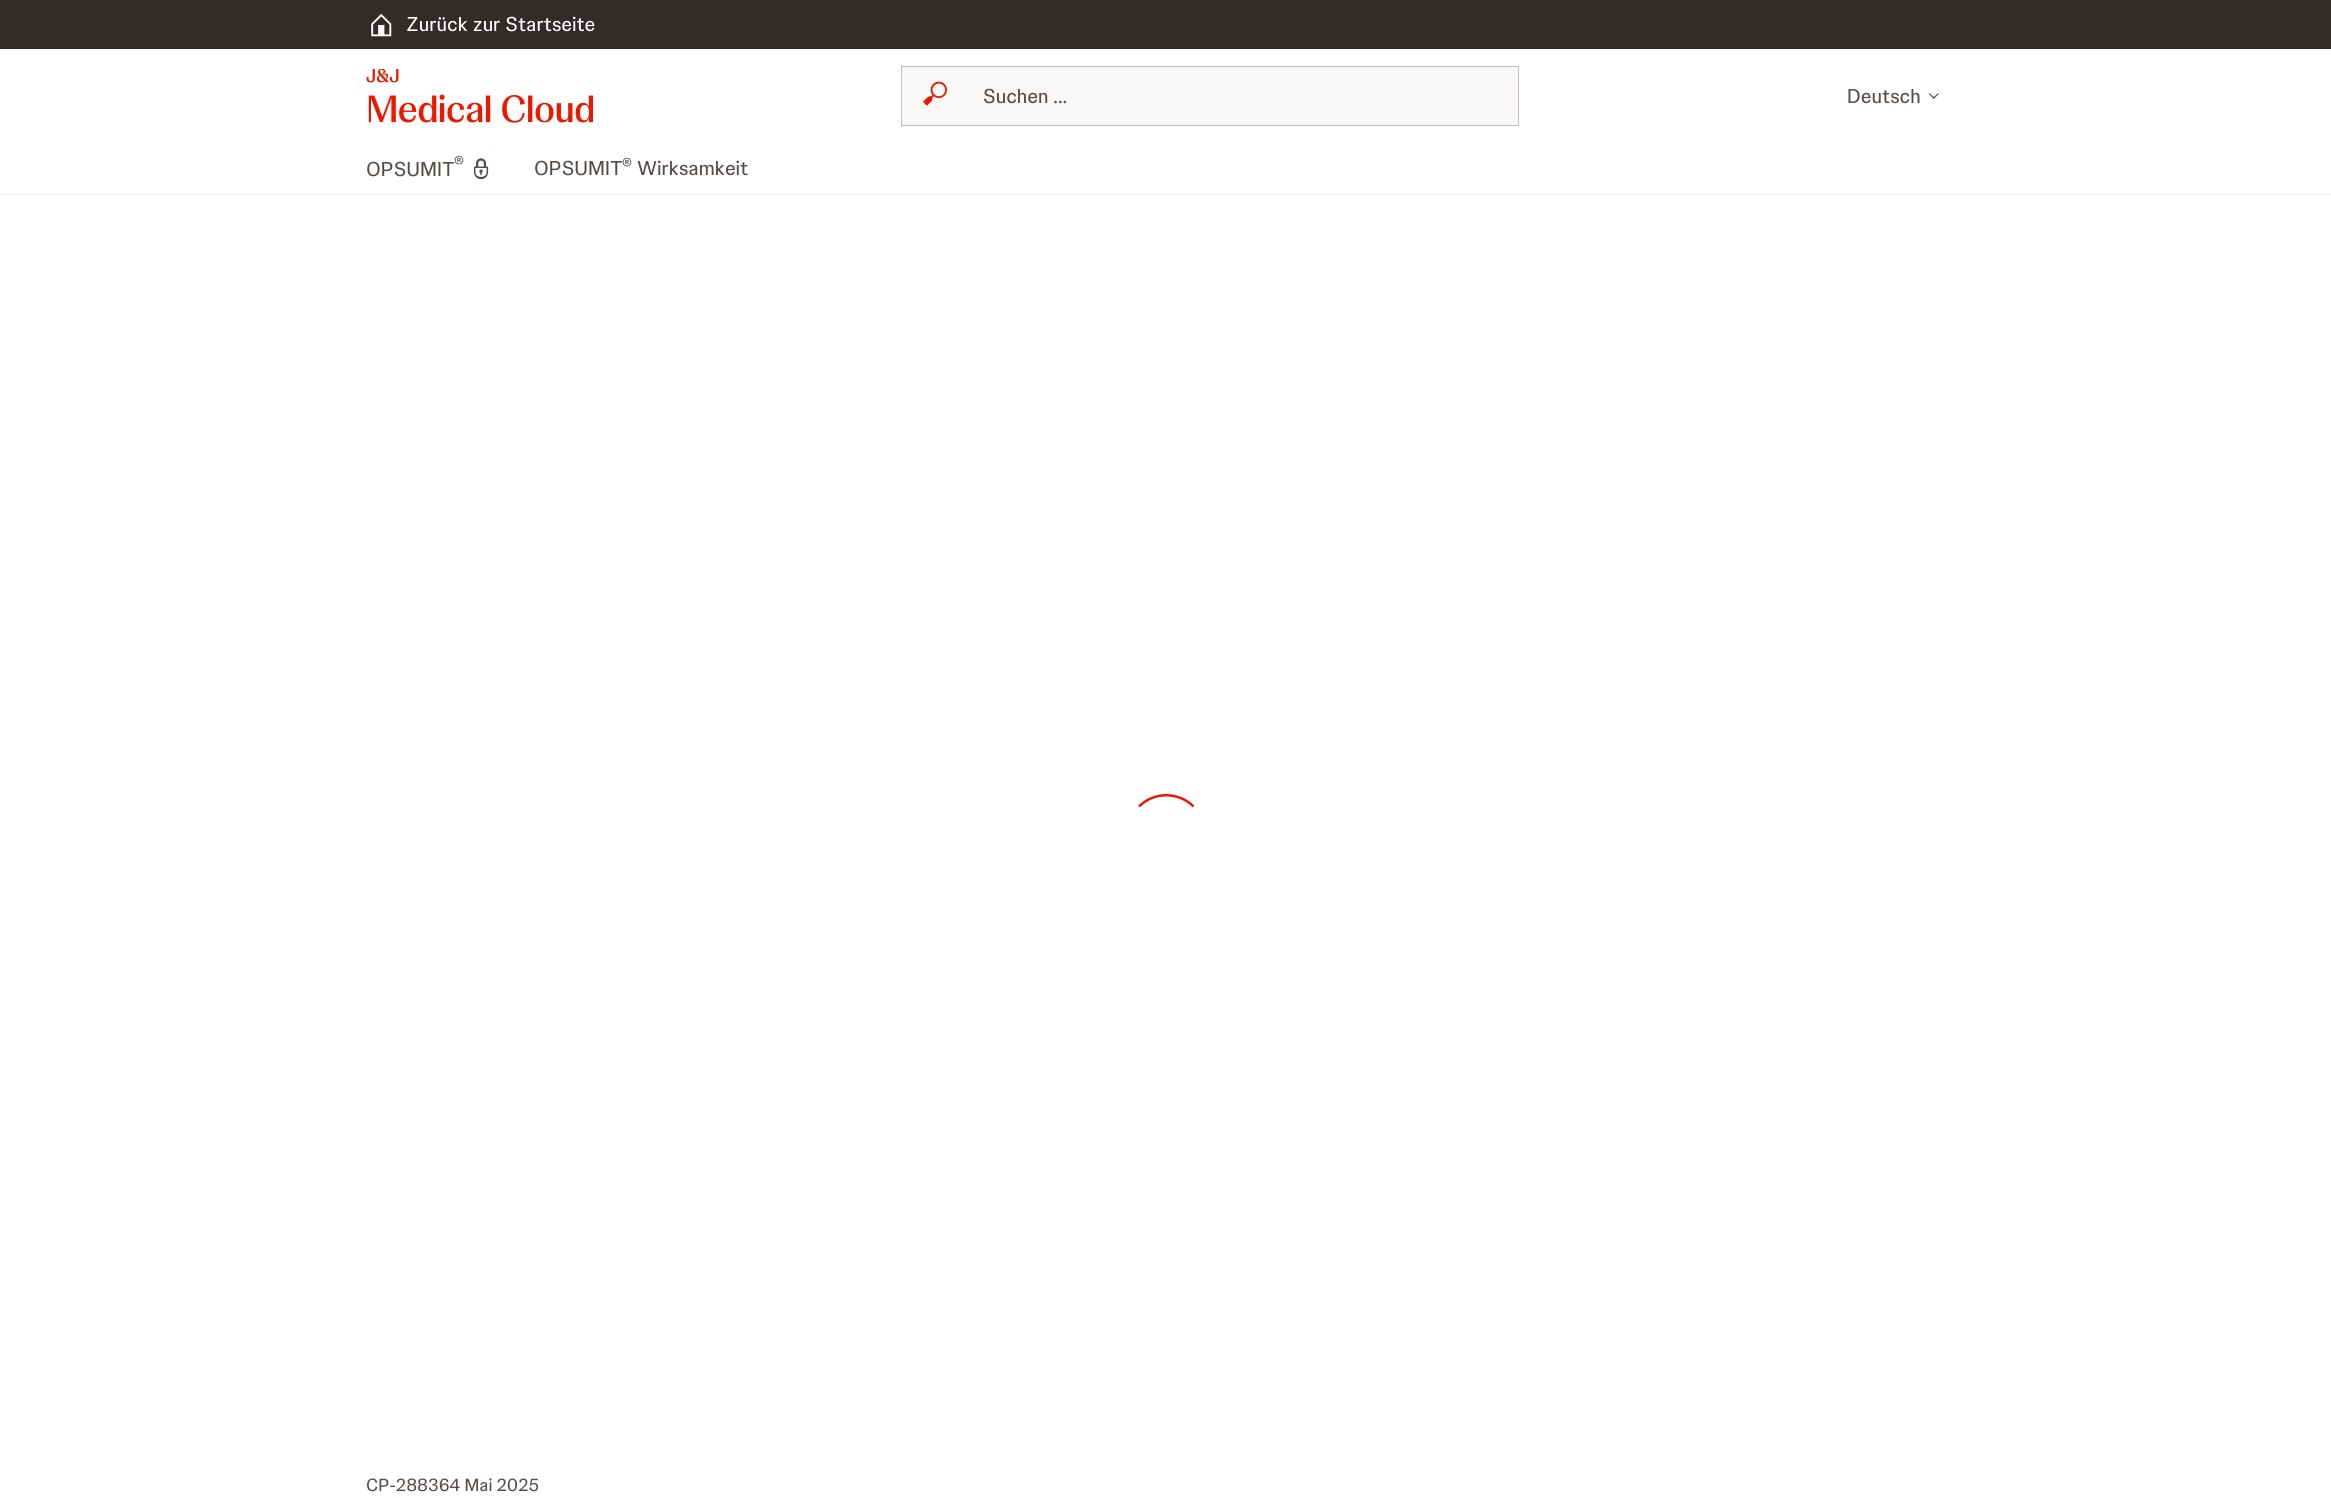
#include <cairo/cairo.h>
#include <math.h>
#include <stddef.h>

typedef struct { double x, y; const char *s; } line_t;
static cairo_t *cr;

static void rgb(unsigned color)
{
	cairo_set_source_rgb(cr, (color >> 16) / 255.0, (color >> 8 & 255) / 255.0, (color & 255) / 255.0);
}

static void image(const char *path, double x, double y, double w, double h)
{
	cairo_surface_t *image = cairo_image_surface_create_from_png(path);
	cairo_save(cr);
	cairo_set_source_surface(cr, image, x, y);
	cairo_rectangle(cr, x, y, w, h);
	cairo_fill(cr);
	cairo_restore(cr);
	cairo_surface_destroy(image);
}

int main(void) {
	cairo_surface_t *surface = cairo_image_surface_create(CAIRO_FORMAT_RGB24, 2331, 1498);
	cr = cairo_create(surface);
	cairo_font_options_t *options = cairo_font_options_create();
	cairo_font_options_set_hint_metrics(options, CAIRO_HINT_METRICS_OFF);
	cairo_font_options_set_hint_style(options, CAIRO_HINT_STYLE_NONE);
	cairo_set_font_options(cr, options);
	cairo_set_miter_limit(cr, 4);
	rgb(0xffffff);
	cairo_paint(cr);
	rgb(0x312c2a);
	cairo_rectangle(cr, 0, 0, 2331, 49);
	cairo_fill(cr);
	image("img/1.png", 371, 13, 21, 24);
	image("img/2.png", 366, 69, 227, 54);
	rgb(0xf9f8f7);
	cairo_rectangle(cr, 901.5, 66.5, 617, 59);
	cairo_fill_preserve(cr);
	rgb(0xc1bbb3);
	cairo_set_line_width(cr, 1);
	cairo_stroke(cr);
	image("img/3.png", 923, 81, 24, 25);
	image("img/4.png", 1928, 93, 11, 6);
	image("img/5.png", 473, 158, 16, 22);
	rgb(0xf1efed);
	cairo_rectangle(cr, 0, 194, 2331, 1);
	cairo_fill(cr);
	cairo_new_path(cr);
	cairo_move_to(cr, 1139, 806.5);
	cairo_curve_to(cr, 1154, 791.5, 1178.5, 791.5, 1193.5, 806.5);
	cairo_move_to(cr, 1139, 806.5);
	cairo_curve_to(cr, 1154, 791.5, 1178.5, 791.5, 1193.5, 806.5);
	cairo_move_to(cr, 1139, 806.5);
	cairo_curve_to(cr, 1154, 791.5, 1178.5, 791.5, 1193.5, 806.5);
	cairo_move_to(cr, 1139, 806.5);
	cairo_curve_to(cr, 1154, 791.5, 1178.5, 791.5, 1193.5, 806.5);
	rgb(0xeb1700);
	cairo_set_line_width(cr, 2.5);
	cairo_stroke(cr);
	cairo_select_font_face(cr, "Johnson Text", CAIRO_FONT_SLANT_NORMAL, CAIRO_FONT_WEIGHT_NORMAL);
	cairo_set_font_size(cr, 20);
	rgb(0xffffff);
	cairo_move_to(cr, 406, 31);
	cairo_show_text(cr, "Zurück zur Startseite");
	rgb(0x564c47);
	{
		static const line_t items[] = {
			{983, 103, "Suchen ..."},
			{1847, 103, "Deutsch"},
			{366, 176, "OPSUMIT"},
		};
		for (size_t i = 0; i < sizeof items / sizeof *items; i++) {
			cairo_move_to(cr, items[i].x, items[i].y);
			cairo_show_text(cr, items[i].s);
		}
	}
	cairo_set_font_size(cr, 17);
	cairo_move_to(cr, 454, 168);
	cairo_show_text(cr, "®");
	cairo_set_font_size(cr, 20);
	cairo_move_to(cr, 534, 175);
	cairo_show_text(cr, "OPSUMIT");
	cairo_set_font_size(cr, 17);
	cairo_move_to(cr, 622, 170);
	cairo_show_text(cr, "®");
	cairo_set_font_size(cr, 20);
	cairo_move_to(cr, 637, 175);
	cairo_show_text(cr, "Wirksamkeit");
	cairo_set_font_size(cr, 17.5);
	cairo_move_to(cr, 366, 1491);
	cairo_show_text(cr, "CP-288364 Mai 2025");
	cairo_surface_write_to_png(surface, "page.png");
	cairo_font_options_destroy(options);
	cairo_destroy(cr);
	cairo_surface_destroy(surface);
	return 0;
}
